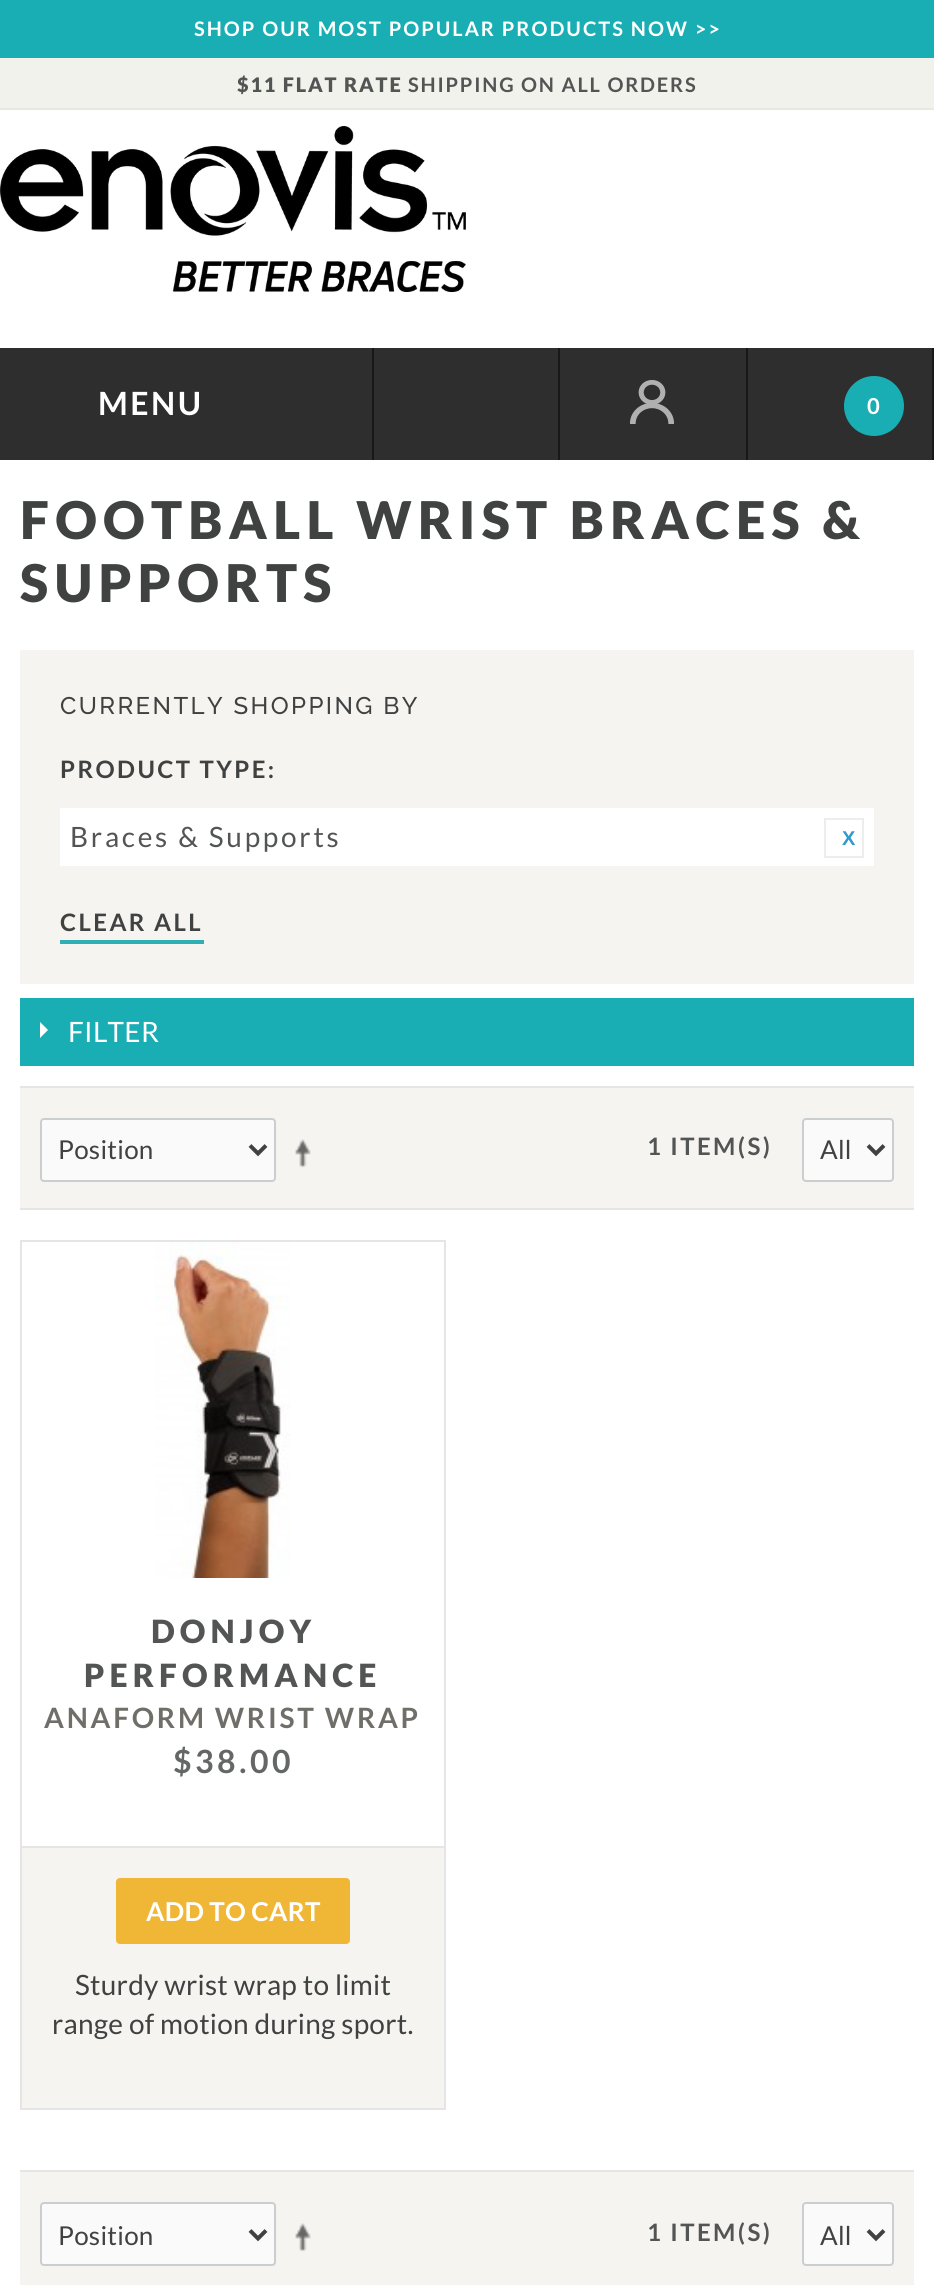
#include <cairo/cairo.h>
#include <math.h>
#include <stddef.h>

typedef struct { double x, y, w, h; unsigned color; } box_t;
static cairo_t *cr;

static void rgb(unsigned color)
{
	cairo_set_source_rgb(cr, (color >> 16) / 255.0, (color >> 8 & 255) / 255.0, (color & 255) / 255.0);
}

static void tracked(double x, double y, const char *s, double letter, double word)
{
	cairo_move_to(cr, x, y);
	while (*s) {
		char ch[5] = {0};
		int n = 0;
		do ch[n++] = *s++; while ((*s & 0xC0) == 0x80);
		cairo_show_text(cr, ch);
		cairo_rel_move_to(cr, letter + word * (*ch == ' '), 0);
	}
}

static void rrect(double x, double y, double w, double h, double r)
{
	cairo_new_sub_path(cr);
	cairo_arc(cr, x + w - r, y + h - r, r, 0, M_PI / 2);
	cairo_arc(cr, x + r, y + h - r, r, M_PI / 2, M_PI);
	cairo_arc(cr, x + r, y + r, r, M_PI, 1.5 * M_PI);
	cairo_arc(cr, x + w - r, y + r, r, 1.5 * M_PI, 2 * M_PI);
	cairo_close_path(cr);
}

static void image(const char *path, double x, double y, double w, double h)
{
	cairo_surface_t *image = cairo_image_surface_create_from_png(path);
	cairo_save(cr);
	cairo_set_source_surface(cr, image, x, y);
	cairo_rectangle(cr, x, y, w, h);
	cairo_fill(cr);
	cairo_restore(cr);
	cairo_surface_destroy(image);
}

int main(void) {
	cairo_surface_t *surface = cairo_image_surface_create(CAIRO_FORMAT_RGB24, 934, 2285);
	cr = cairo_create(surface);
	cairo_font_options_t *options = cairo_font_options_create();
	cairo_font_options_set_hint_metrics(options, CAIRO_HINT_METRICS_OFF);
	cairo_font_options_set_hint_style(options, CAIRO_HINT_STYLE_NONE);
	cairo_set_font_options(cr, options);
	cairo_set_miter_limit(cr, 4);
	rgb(0xffffff);
	cairo_paint(cr);
	{
		static const box_t items[] = {
			{0, 0, 934, 58, 0x19aeb4},
			{0, 58, 934, 50, 0xf2f2ed},
			{0, 108, 934, 2, 0xe9e8e0},
		};
		for (size_t i = 0; i < sizeof items / sizeof *items; i++) {
			rgb(items[i].color);
			cairo_rectangle(cr, items[i].x, items[i].y, items[i].w, items[i].h);
			cairo_fill(cr);
		}
	}
	image("img/1.png", 0, 126, 466, 166);
	{
		static const box_t items[] = {
			{0, 348, 372, 112, 0x2e2e2e},
			{372, 348, 2, 112, 0x181818},
			{374, 348, 184, 112, 0x2e2e2e},
			{558, 348, 2, 112, 0x181818},
			{560, 348, 186, 112, 0x2e2e2e},
			{746, 348, 2, 112, 0x181818},
		};
		for (size_t i = 0; i < sizeof items / sizeof *items; i++) {
			rgb(items[i].color);
			cairo_rectangle(cr, items[i].x, items[i].y, items[i].w, items[i].h);
			cairo_fill(cr);
		}
	}
	image("img/2.png", 630, 380, 44, 44);
	rgb(0x2e2e2e);
	cairo_rectangle(cr, 748, 348, 184, 112);
	cairo_fill(cr);
	rgb(0x181818);
	cairo_rectangle(cr, 932, 348, 2, 112);
	cairo_fill(cr);
	rgb(0x19aeb4);
	cairo_arc(cr, 874, 406, 30, 0, 2 * M_PI);
	cairo_fill(cr);
	rgb(0xf5f4f0);
	cairo_rectangle(cr, 20, 650, 894, 334);
	cairo_fill(cr);
	rgb(0xffffff);
	cairo_rectangle(cr, 60, 808, 814, 58);
	cairo_fill(cr);
	cairo_rectangle(cr, 825, 819, 38, 38);
	rgb(0xededed);
	cairo_stroke(cr);
	rgb(0x2dafb4);
	cairo_rectangle(cr, 60, 940, 144, 4);
	cairo_fill(cr);
	rgb(0x19aeb4);
	cairo_rectangle(cr, 20, 998, 894, 68);
	cairo_fill(cr);
	rgb(0xffffff);
	cairo_new_path(cr);
	cairo_move_to(cr, 40, 1038);
	cairo_line_to(cr, 40, 1022);
	cairo_line_to(cr, 48, 1030);
	cairo_close_path(cr);
	cairo_fill(cr);
	{
		static const box_t items[] = {
			{20, 1088, 894, 120, 0xf5f4f0},
			{20, 1086, 894, 2, 0xe5e5e5},
			{20, 1208, 894, 2, 0xe5e5e5},
		};
		for (size_t i = 0; i < sizeof items / sizeof *items; i++) {
			rgb(items[i].color);
			cairo_rectangle(cr, items[i].x, items[i].y, items[i].w, items[i].h);
			cairo_fill(cr);
		}
	}
	rgb(0xfafafa);
	rrect(41, 1119, 234, 62, 3);
	cairo_fill_preserve(cr);
	rgb(0xcbcece);
	cairo_stroke(cr);
	cairo_new_path(cr);
	cairo_move_to(cr, 250, 1145.5);
	cairo_line_to(cr, 258, 1153.5);
	cairo_line_to(cr, 266, 1145.5);
	rgb(0x404141);
	cairo_set_line_width(cr, 4);
	cairo_stroke(cr);
	image("img/3.png", 295, 1139, 16, 29);
	rgb(0xfafafa);
	rrect(803, 1119, 90, 62, 3);
	cairo_fill_preserve(cr);
	rgb(0xcbcece);
	cairo_set_line_width(cr, 2);
	cairo_stroke(cr);
	cairo_new_path(cr);
	cairo_move_to(cr, 868, 1145.5);
	cairo_line_to(cr, 876, 1153.5);
	cairo_line_to(cr, 884, 1145.5);
	rgb(0x404141);
	cairo_set_line_width(cr, 4);
	cairo_stroke(cr);
	cairo_rectangle(cr, 21, 1241, 424, 868);
	rgb(0xe5e5e5);
	cairo_set_line_width(cr, 2);
	cairo_stroke(cr);
	image("img/4.png", 155, 1242, 135, 336);
	rgb(0xf5f4f0);
	cairo_rectangle(cr, 22, 1848, 422, 260);
	cairo_fill(cr);
	rgb(0xe5e5e5);
	cairo_rectangle(cr, 22, 1846, 422, 2);
	cairo_fill(cr);
	rgb(0xf0b736);
	rrect(116, 1878, 234, 66, 4);
	cairo_fill(cr);
	rgb(0xf5f4f0);
	cairo_rectangle(cr, 20, 2172, 894, 113);
	cairo_fill(cr);
	rgb(0xe5e5e5);
	cairo_rectangle(cr, 20, 2170, 894, 2);
	cairo_fill(cr);
	rgb(0xfafafa);
	rrect(41, 2203, 234, 62, 3);
	cairo_fill_preserve(cr);
	rgb(0xcbcece);
	cairo_stroke(cr);
	cairo_new_path(cr);
	cairo_move_to(cr, 250, 2230.5);
	cairo_line_to(cr, 258, 2238.5);
	cairo_line_to(cr, 266, 2230.5);
	rgb(0x404141);
	cairo_set_line_width(cr, 4);
	cairo_stroke(cr);
	image("img/3.png", 295, 2223, 16, 29);
	rgb(0xfafafa);
	rrect(803, 2203, 90, 62, 3);
	cairo_fill_preserve(cr);
	rgb(0xcbcece);
	cairo_set_line_width(cr, 2);
	cairo_stroke(cr);
	cairo_new_path(cr);
	cairo_move_to(cr, 868, 2230.5);
	cairo_line_to(cr, 876, 2238.5);
	cairo_line_to(cr, 884, 2230.5);
	rgb(0x404141);
	cairo_set_line_width(cr, 4);
	cairo_stroke(cr);
	cairo_select_font_face(cr, "Lato", CAIRO_FONT_SLANT_NORMAL, CAIRO_FONT_WEIGHT_BOLD);
	cairo_set_font_size(cr, 20);
	rgb(0xffffff);
	tracked(194, 36, "SHOP OUR MOST POPULAR PRODUCTS NOW >>", 2, 0);
	cairo_select_font_face(cr, "Lato Black", CAIRO_FONT_SLANT_NORMAL, CAIRO_FONT_WEIGHT_NORMAL);
	rgb(0x535454);
	tracked(237, 92, "$11 FLAT RATE", 1.8, 0);
	cairo_select_font_face(cr, "Lato", CAIRO_FONT_SLANT_NORMAL, CAIRO_FONT_WEIGHT_BOLD);
	tracked(408, 92, "SHIPPING ON ALL ORDERS", 1.8, 0);
	cairo_set_font_size(cr, 32);
	rgb(0xffffff);
	tracked(98, 415, "MENU", 2.5, 0);
	cairo_set_font_size(cr, 22);
	tracked(867, 414, "0", 0.25, 0);
	cairo_select_font_face(cr, "Lato Black", CAIRO_FONT_SLANT_NORMAL, CAIRO_FONT_WEIGHT_NORMAL);
	cairo_set_font_size(cr, 52);
	rgb(0x404141);
	tracked(20, 539, "FOOTBALL WRIST BRACES &", 6.25, 0);
	tracked(20, 602, "SUPPORTS", 6.25, 0);
	cairo_select_font_face(cr, "Raleway Medium", CAIRO_FONT_SLANT_NORMAL, CAIRO_FONT_WEIGHT_NORMAL);
	cairo_set_font_size(cr, 24);
	tracked(60, 714, "CURRENTLY SHOPPING BY", 2.4, 0);
	cairo_select_font_face(cr, "Lato", CAIRO_FONT_SLANT_NORMAL, CAIRO_FONT_WEIGHT_BOLD);
	tracked(60, 778, "PRODUCT TYPE:", 2.4, 0);
	cairo_select_font_face(cr, "Lato", CAIRO_FONT_SLANT_NORMAL, CAIRO_FONT_WEIGHT_NORMAL);
	cairo_set_font_size(cr, 28);
	rgb(0x535454);
	tracked(70, 847, "Braces & Supports", 2.75, 0);
	cairo_select_font_face(cr, "Liberation Sans", CAIRO_FONT_SLANT_NORMAL, CAIRO_FONT_WEIGHT_BOLD);
	cairo_set_font_size(cr, 20);
	rgb(0x3399cc);
	tracked(842, 845, "X", 2.75, 0);
	cairo_select_font_face(cr, "Lato", CAIRO_FONT_SLANT_NORMAL, CAIRO_FONT_WEIGHT_BOLD);
	cairo_set_font_size(cr, 24);
	rgb(0x404141);
	tracked(60, 931, "CLEAR ALL", 2.4, 0);
	cairo_select_font_face(cr, "Lato", CAIRO_FONT_SLANT_NORMAL, CAIRO_FONT_WEIGHT_NORMAL);
	cairo_set_font_size(cr, 28);
	rgb(0xffffff);
	tracked(68, 1042, "FILTER", 0.25, 0);
	cairo_set_font_size(cr, 26);
	rgb(0x404141);
	tracked(58, 1159, "Position", 0.25, 0);
	cairo_select_font_face(cr, "Lato", CAIRO_FONT_SLANT_NORMAL, CAIRO_FONT_WEIGHT_BOLD);
	cairo_set_font_size(cr, 24);
	rgb(0x535454);
	tracked(647, 1155, "1 ITEM(S)", 2.4, 0);
	cairo_select_font_face(cr, "Lato", CAIRO_FONT_SLANT_NORMAL, CAIRO_FONT_WEIGHT_NORMAL);
	cairo_set_font_size(cr, 26);
	rgb(0x404141);
	tracked(820, 1159, "All", 0.25, 0);
	cairo_select_font_face(cr, "Lato Black", CAIRO_FONT_SLANT_NORMAL, CAIRO_FONT_WEIGHT_NORMAL);
	cairo_set_font_size(cr, 32);
	rgb(0x535454);
	tracked(151, 1643, "DONJOY", 5.1, 0);
	tracked(84, 1687, "PERFORMANCE", 5.1, 0);
	cairo_select_font_face(cr, "Lato", CAIRO_FONT_SLANT_NORMAL, CAIRO_FONT_WEIGHT_BOLD);
	cairo_set_font_size(cr, 28);
	rgb(0x6f6e69);
	tracked(44, 1728, "ANAFORM WRIST WRAP", 2.75, 0);
	cairo_set_font_size(cr, 32);
	rgb(0x656666);
	tracked(173, 1773, "$38.00", 3.5, 0);
	cairo_set_font_size(cr, 26);
	rgb(0xffffff);
	tracked(146, 1921, "ADD TO CART", 0.25, 0);
	cairo_select_font_face(cr, "Lato", CAIRO_FONT_SLANT_NORMAL, CAIRO_FONT_WEIGHT_NORMAL);
	cairo_set_font_size(cr, 28);
	rgb(0x404141);
	tracked(75, 1995, "Sturdy wrist wrap to limit", 0.25, 0);
	tracked(52, 2034, "range of motion during sport.", 0.25, 0);
	cairo_set_font_size(cr, 26);
	tracked(58, 2245, "Position", 0.25, 0);
	cairo_select_font_face(cr, "Lato", CAIRO_FONT_SLANT_NORMAL, CAIRO_FONT_WEIGHT_BOLD);
	cairo_set_font_size(cr, 24);
	rgb(0x535454);
	tracked(647, 2241, "1 ITEM(S)", 2.4, 0);
	cairo_select_font_face(cr, "Lato", CAIRO_FONT_SLANT_NORMAL, CAIRO_FONT_WEIGHT_NORMAL);
	cairo_set_font_size(cr, 26);
	rgb(0x404141);
	tracked(820, 2245, "All", 0.25, 0);
	cairo_surface_write_to_png(surface, "page.png");
	cairo_font_options_destroy(options);
	cairo_destroy(cr);
	cairo_surface_destroy(surface);
	return 0;
}
